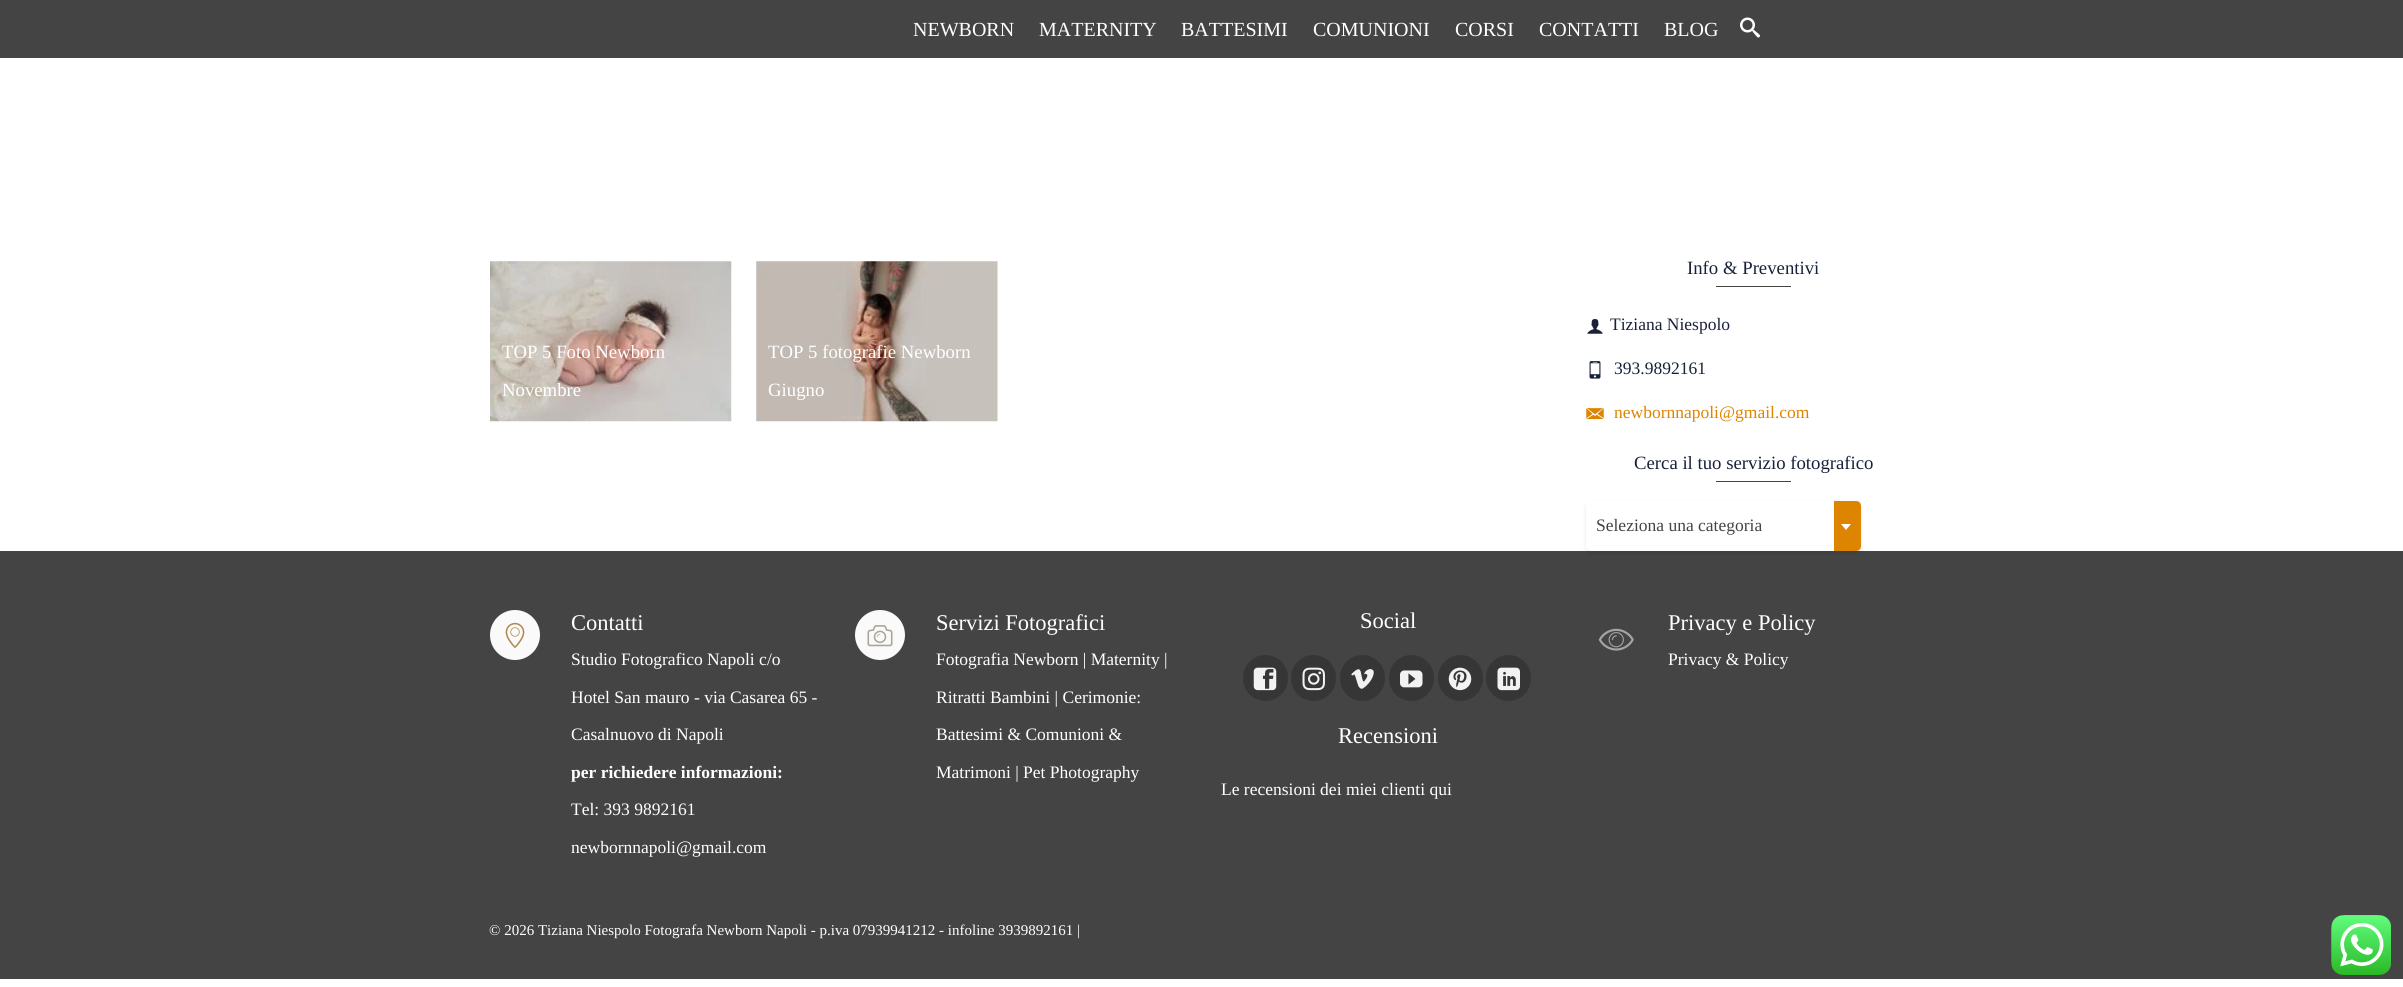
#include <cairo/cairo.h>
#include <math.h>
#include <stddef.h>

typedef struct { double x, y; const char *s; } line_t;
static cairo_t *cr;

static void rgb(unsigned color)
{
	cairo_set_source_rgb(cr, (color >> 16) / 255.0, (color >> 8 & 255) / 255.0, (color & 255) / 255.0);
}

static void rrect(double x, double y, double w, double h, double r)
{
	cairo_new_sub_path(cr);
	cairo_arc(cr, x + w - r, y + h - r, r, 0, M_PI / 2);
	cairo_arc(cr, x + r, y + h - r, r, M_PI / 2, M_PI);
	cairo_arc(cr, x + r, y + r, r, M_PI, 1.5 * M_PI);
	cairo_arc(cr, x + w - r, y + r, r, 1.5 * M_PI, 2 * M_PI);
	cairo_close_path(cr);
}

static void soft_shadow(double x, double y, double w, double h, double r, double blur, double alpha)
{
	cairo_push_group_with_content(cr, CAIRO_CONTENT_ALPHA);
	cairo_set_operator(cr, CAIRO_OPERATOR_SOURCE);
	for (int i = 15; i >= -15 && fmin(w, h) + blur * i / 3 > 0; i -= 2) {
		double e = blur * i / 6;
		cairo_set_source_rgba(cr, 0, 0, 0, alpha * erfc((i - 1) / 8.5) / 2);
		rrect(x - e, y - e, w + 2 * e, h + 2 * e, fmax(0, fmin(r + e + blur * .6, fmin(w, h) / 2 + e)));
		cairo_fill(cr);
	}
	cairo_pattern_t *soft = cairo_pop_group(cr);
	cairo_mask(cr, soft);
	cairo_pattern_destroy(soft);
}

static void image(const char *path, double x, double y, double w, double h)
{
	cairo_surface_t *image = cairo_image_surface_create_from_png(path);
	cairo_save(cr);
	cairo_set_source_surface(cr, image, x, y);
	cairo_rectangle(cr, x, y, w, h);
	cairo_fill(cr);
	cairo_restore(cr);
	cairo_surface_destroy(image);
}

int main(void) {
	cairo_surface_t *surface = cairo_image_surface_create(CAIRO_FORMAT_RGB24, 2403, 987);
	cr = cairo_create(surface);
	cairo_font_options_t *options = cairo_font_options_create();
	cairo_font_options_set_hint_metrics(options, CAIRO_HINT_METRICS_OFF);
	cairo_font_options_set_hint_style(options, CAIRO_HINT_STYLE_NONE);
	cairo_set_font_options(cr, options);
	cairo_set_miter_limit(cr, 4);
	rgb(0xffffff);
	cairo_paint(cr);
	rgb(0x444444);
	cairo_rectangle(cr, 0, 0, 2403, 58);
	cairo_fill(cr);
	image("img/1.png", 1740, 17, 20, 21);
	image("img/2.png", 490, 261, 242, 161);
	image("img/3.png", 756, 261, 242, 161);
	cairo_rectangle(cr, 1716, 286, 75, 1);
	cairo_fill(cr);
	image("img/4.png", 1587, 319, 16, 15);
	image("img/5.png", 1589, 361, 12, 18);
	image("img/6.png", 1586, 408, 18, 12);
	cairo_rectangle(cr, 1716, 481, 75, 1);
	cairo_fill(cr);
	cairo_rectangle(cr, 0, 551, 2403, 428);
	cairo_fill(cr);
	rgb(0x000000);
	soft_shadow(1586, 503, 275, 50, 5, 2, 0.1);
	rgb(0xffffff);
	rrect(1586, 501, 275, 50, 5);
	cairo_fill(cr);
	rgb(0xdd8500);
	cairo_new_path(cr);
	cairo_move_to(cr, 1834, 501);
	cairo_line_to(cr, 1856, 501);
	cairo_curve_to(cr, 1859, 501, 1861, 503, 1861, 506);
	cairo_line_to(cr, 1861, 546);
	cairo_curve_to(cr, 1861, 549, 1859, 551, 1856, 551);
	cairo_line_to(cr, 1834, 551);
	cairo_close_path(cr);
	cairo_fill(cr);
	rgb(0xffffff);
	cairo_new_path(cr);
	cairo_move_to(cr, 1841, 524);
	cairo_line_to(cr, 1851, 524);
	cairo_line_to(cr, 1846, 530);
	cairo_close_path(cr);
	cairo_fill(cr);
	rgb(0xfafafa);
	cairo_arc(cr, 515, 635, 25, 0, 2 * M_PI);
	cairo_fill(cr);
	image("img/7.png", 505, 622, 20, 26);
	cairo_arc(cr, 880, 635, 25, 0, 2 * M_PI);
	cairo_fill(cr);
	image("img/8.png", 867, 625, 26, 22);
	rgb(0x363636);
	rrect(1243, 655, 45, 46, 22.5);
	cairo_fill(cr);
	image("img/9.png", 1253, 667, 24, 24);
	rrect(1291, 655, 45, 46, 22.5);
	cairo_fill(cr);
	image("img/10.png", 1302, 667, 23, 24);
	rrect(1340, 655, 45, 46, 22.5);
	cairo_fill(cr);
	image("img/11.png", 1351, 669, 23, 20);
	rrect(1389, 655, 45, 46, 22.5);
	cairo_fill(cr);
	image("img/12.png", 1400, 670, 23, 18);
	rrect(1438, 655, 45, 46, 22.5);
	cairo_fill(cr);
	image("img/13.png", 1448, 667, 24, 24);
	rrect(1486, 655, 45, 46, 22.5);
	cairo_fill(cr);
	image("img/14.png", 1497, 667, 23, 24);
	image("img/15.png", 1598, 628, 36, 23);
	image("img/16.png", 2331, 915, 60, 60);
	cairo_select_font_face(cr, "Liberation Serif", CAIRO_FONT_SLANT_NORMAL, CAIRO_FONT_WEIGHT_NORMAL);
	cairo_set_font_size(cr, 20);
	rgb(0xffffff);
	{
		static const line_t items[] = {
			{913, 36, "NEWBORN"},
			{1039, 36, "MATERNITY"},
			{1181, 36, "BATTESIMI"},
			{1313, 36, "COMUNIONI"},
			{1455, 36, "CORSI"},
			{1539, 36, "CONTATTI"},
			{1664, 36, "BLOG"},
		};
		for (size_t i = 0; i < sizeof items / sizeof *items; i++) {
			cairo_move_to(cr, items[i].x, items[i].y);
			cairo_show_text(cr, items[i].s);
		}
	}
	cairo_set_font_size(cr, 18.75);
	{
		static const line_t items[] = {
			{502, 358, "TOP 5 Foto Newborn"},
			{502, 396, "Novembre"},
			{768, 358, "TOP 5 fotografie Newborn"},
			{768, 396, "Giugno"},
		};
		for (size_t i = 0; i < sizeof items / sizeof *items; i++) {
			cairo_move_to(cr, items[i].x, items[i].y);
			cairo_show_text(cr, items[i].s);
		}
	}
	rgb(0x182139);
	cairo_move_to(cr, 1687, 274);
	cairo_show_text(cr, "Info & Preventivi");
	cairo_set_font_size(cr, 17.5);
	cairo_move_to(cr, 1610, 330);
	cairo_show_text(cr, "Tiziana Niespolo");
	cairo_move_to(cr, 1614, 374);
	cairo_show_text(cr, "393.9892161");
	rgb(0xdd8500);
	cairo_move_to(cr, 1614, 418);
	cairo_show_text(cr, "newbornnapoli@gmail.com");
	cairo_set_font_size(cr, 18.75);
	rgb(0x182139);
	cairo_move_to(cr, 1634, 469);
	cairo_show_text(cr, "Cerca il tuo servizio fotografico");
	cairo_set_font_size(cr, 17.5);
	rgb(0x444444);
	cairo_move_to(cr, 1596, 531);
	cairo_show_text(cr, "Seleziona una categoria");
	cairo_set_font_size(cr, 22.5);
	rgb(0xffffff);
	cairo_move_to(cr, 571, 630);
	cairo_show_text(cr, "Contatti");
	cairo_set_font_size(cr, 17.5);
	{
		static const line_t items[] = {
			{571, 665, "Studio Fotografico Napoli c/o"},
			{571, 703, "Hotel San mauro - via Casarea 65 -"},
			{571, 740, "Casalnuovo di Napoli"},
		};
		for (size_t i = 0; i < sizeof items / sizeof *items; i++) {
			cairo_move_to(cr, items[i].x, items[i].y);
			cairo_show_text(cr, items[i].s);
		}
	}
	cairo_select_font_face(cr, "Liberation Serif", CAIRO_FONT_SLANT_NORMAL, CAIRO_FONT_WEIGHT_BOLD);
	cairo_move_to(cr, 571, 778);
	cairo_show_text(cr, "per richiedere informazioni:");
	cairo_select_font_face(cr, "Liberation Serif", CAIRO_FONT_SLANT_NORMAL, CAIRO_FONT_WEIGHT_NORMAL);
	cairo_move_to(cr, 571, 815);
	cairo_show_text(cr, "Tel: 393 9892161");
	cairo_move_to(cr, 571, 853);
	cairo_show_text(cr, "newbornnapoli@gmail.com");
	cairo_set_font_size(cr, 22.5);
	cairo_move_to(cr, 936, 630);
	cairo_show_text(cr, "Servizi Fotografici");
	cairo_set_font_size(cr, 17.5);
	{
		static const line_t items[] = {
			{936, 665, "Fotografia Newborn | Maternity |"},
			{936, 703, "Ritratti Bambini | Cerimonie:"},
			{936, 740, "Battesimi & Comunioni &"},
			{936, 778, "Matrimoni | Pet Photography"},
		};
		for (size_t i = 0; i < sizeof items / sizeof *items; i++) {
			cairo_move_to(cr, items[i].x, items[i].y);
			cairo_show_text(cr, items[i].s);
		}
	}
	cairo_set_font_size(cr, 22.5);
	cairo_move_to(cr, 1360, 628);
	cairo_show_text(cr, "Social");
	cairo_move_to(cr, 1338, 743);
	cairo_show_text(cr, "Recensioni");
	cairo_set_font_size(cr, 17.5);
	cairo_move_to(cr, 1221, 795);
	cairo_show_text(cr, "Le recensioni dei miei clienti qui");
	cairo_set_font_size(cr, 22.5);
	cairo_move_to(cr, 1668, 630);
	cairo_show_text(cr, "Privacy e Policy");
	cairo_set_font_size(cr, 17.5);
	cairo_move_to(cr, 1668, 665);
	cairo_show_text(cr, "Privacy & Policy");
	cairo_set_font_size(cr, 15);
	cairo_move_to(cr, 489, 935);
	cairo_show_text(cr, "© 2026 Tiziana Niespolo Fotografa Newborn Napoli - p.iva 07939941212 - infoline 3939892161 |");
	cairo_surface_write_to_png(surface, "page.png");
	cairo_font_options_destroy(options);
	cairo_destroy(cr);
	cairo_surface_destroy(surface);
	return 0;
}
